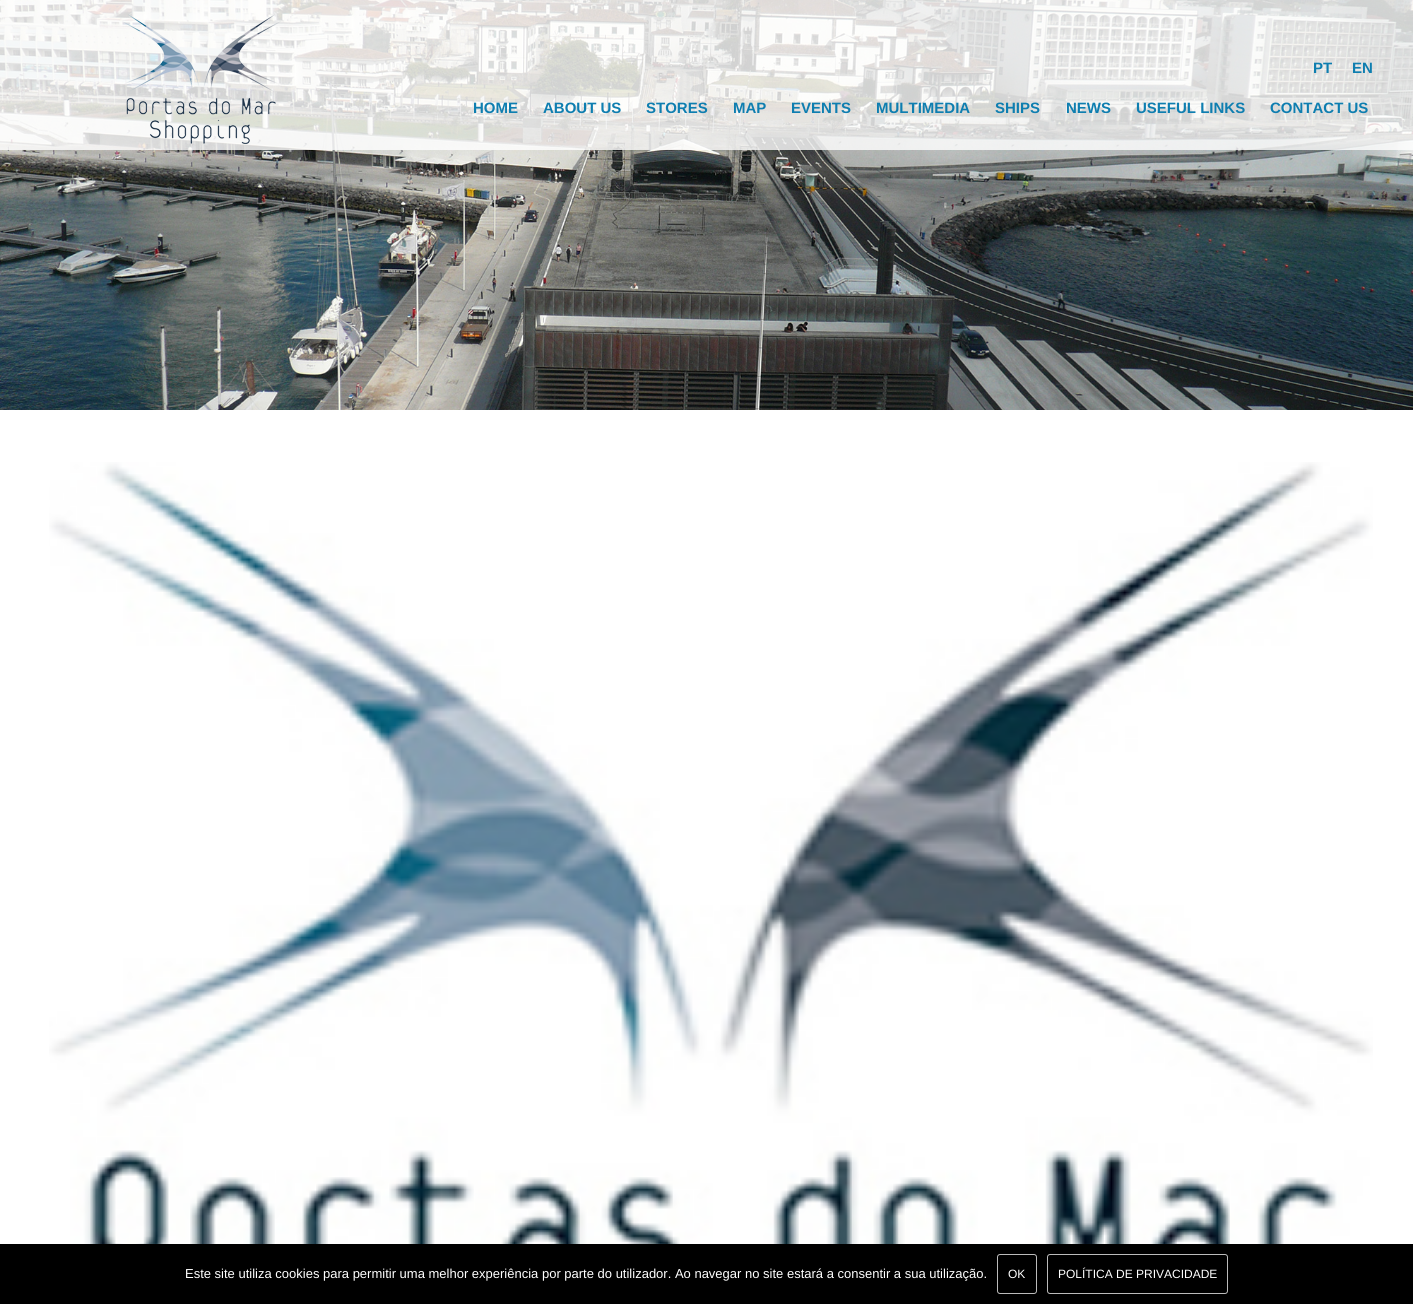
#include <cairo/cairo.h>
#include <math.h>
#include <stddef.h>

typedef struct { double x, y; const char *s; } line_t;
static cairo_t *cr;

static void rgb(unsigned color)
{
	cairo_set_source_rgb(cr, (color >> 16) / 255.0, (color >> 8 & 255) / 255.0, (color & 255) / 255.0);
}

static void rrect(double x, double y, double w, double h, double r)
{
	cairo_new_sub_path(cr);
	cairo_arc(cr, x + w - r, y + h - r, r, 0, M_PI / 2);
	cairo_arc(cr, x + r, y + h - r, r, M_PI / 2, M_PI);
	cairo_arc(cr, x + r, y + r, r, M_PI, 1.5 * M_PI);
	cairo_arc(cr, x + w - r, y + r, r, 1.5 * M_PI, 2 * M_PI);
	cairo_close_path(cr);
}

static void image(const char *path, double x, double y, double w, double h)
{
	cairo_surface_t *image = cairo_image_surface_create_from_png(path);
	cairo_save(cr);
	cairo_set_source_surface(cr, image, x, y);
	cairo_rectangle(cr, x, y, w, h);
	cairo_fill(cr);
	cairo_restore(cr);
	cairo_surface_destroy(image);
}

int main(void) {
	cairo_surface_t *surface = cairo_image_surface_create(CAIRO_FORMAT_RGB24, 1413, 1304);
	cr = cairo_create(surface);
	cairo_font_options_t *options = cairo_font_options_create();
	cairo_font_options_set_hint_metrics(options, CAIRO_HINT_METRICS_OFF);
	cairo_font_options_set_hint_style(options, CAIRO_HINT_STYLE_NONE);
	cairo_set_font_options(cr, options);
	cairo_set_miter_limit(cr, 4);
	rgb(0xffffff);
	cairo_paint(cr);
	image("img/1.png", 0, 0, 1413, 410);
	image("img/2.png", 49, 462, 1324, 782);
	cairo_set_source_rgba(cr, 1, 1, 1, 0.8);
	cairo_rectangle(cr, 0, 0, 1413, 150);
	cairo_fill(cr);
	image("img/3.png", 122, 14, 159, 130);
	rgb(0x000000);
	cairo_rectangle(cr, 0, 1244, 1413, 60);
	cairo_fill(cr);
	rrect(997.5, 1254.5, 39, 39, 2.5);
	rgb(0xbbbbbb);
	cairo_set_line_width(cr, 1);
	cairo_stroke(cr);
	rrect(1047.5, 1254.5, 180, 39, 2.5);
	cairo_stroke(cr);
	cairo_select_font_face(cr, "Liberation Sans", CAIRO_FONT_SLANT_NORMAL, CAIRO_FONT_WEIGHT_BOLD);
	cairo_set_font_size(cr, 15);
	rgb(0x0e7eb0);
	{
		static const line_t items[] = {
			{1313, 73, "PT"},
			{1352, 73, "EN"},
			{473, 113, "HOME"},
			{543, 113, "ABOUT US"},
			{646, 113, "STORES"},
			{733, 113, "MAP"},
			{791, 113, "EVENTS"},
			{876, 113, "MULTIMEDIA"},
			{995, 113, "SHIPS"},
			{1066, 113, "NEWS"},
			{1136, 113, "USEFUL LINKS"},
			{1270, 113, "CONTACT US"},
		};
		for (size_t i = 0; i < sizeof items / sizeof *items; i++) {
			cairo_move_to(cr, items[i].x, items[i].y);
			cairo_show_text(cr, items[i].s);
		}
	}
	cairo_select_font_face(cr, "Liberation Sans", CAIRO_FONT_SLANT_NORMAL, CAIRO_FONT_WEIGHT_NORMAL);
	cairo_set_font_size(cr, 13);
	rgb(0xffffff);
	cairo_move_to(cr, 185, 1278);
	cairo_show_text(cr, "Este site utiliza cookies para permitir uma melhor experiência por parte do utilizador. Ao navegar no site estará a consentir a sua utilização.");
	cairo_set_font_size(cr, 12);
	cairo_move_to(cr, 1008, 1278);
	cairo_show_text(cr, "OK");
	cairo_move_to(cr, 1058, 1278);
	cairo_show_text(cr, "POLÍTICA DE PRIVACIDADE");
	cairo_surface_write_to_png(surface, "page.png");
	cairo_font_options_destroy(options);
	cairo_destroy(cr);
	cairo_surface_destroy(surface);
	return 0;
}
